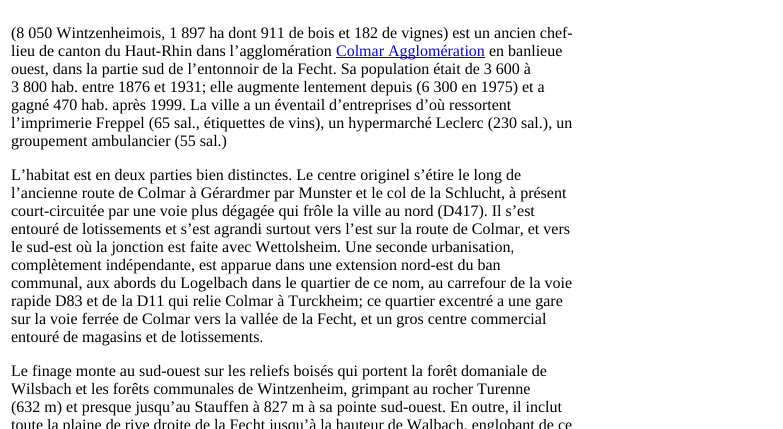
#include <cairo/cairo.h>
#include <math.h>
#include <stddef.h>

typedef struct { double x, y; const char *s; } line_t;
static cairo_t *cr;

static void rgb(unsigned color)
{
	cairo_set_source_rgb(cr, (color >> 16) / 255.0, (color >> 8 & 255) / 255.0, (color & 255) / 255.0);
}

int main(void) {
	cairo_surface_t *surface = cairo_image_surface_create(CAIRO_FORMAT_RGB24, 783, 429);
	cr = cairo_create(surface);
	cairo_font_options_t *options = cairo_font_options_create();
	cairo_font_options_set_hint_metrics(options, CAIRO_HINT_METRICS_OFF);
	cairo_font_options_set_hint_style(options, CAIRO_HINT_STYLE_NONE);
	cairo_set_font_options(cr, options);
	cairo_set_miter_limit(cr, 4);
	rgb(0xffffff);
	cairo_paint(cr);
	rgb(0x0000ee);
	cairo_rectangle(cr, 336, 57, 149, 1);
	cairo_fill(cr);
	cairo_select_font_face(cr, "Liberation Serif", CAIRO_FONT_SLANT_NORMAL, CAIRO_FONT_WEIGHT_NORMAL);
	cairo_set_font_size(cr, 16);
	rgb(0x000000);
	cairo_move_to(cr, 11, 38);
	cairo_show_text(cr, "(8 050 Wintzenheimois, 1 897 ha dont 911 de bois et 182 de vignes) est un ancien chef-");
	cairo_move_to(cr, 11, 56);
	cairo_show_text(cr, "lieu de canton du Haut-Rhin dans l’agglomération");
	rgb(0x0000ee);
	cairo_move_to(cr, 336, 56);
	cairo_show_text(cr, "Colmar Agglomération");
	rgb(0x000000);
	{
		static const line_t items[] = {
			{489, 56, "en banlieue"},
			{11, 74, "ouest, dans la partie sud de l’entonnoir de la Fecht. Sa population était de 3 600 à"},
			{11, 92, "3 800 hab. entre 1876 et 1931; elle augmente lentement depuis (6 300 en 1975) et a"},
			{11, 110, "gagné 470 hab. après 1999. La ville a un éventail d’entreprises d’où ressortent"},
			{11, 128, "l’imprimerie Freppel (65 sal., étiquettes de vins), un hypermarché Leclerc (230 sal.), un"},
			{11, 146, "groupement ambulancier (55 sal.)"},
			{11, 180, "L’habitat est en deux parties bien distinctes. Le centre originel s’étire le long de"},
			{11, 198, "l’ancienne route de Colmar à Gérardmer par Munster et le col de la Schlucht, à présent"},
			{11, 216, "court-circuitée par une voie plus dégagée qui frôle la ville au nord (D417). Il s’est"},
			{11, 234, "entouré de lotissements et s’est agrandi surtout vers l’est sur la route de Colmar, et vers"},
			{11, 252, "le sud-est où la jonction est faite avec Wettolsheim. Une seconde urbanisation,"},
			{11, 270, "complètement indépendante, est apparue dans une extension nord-est du ban"},
			{11, 288, "communal, aux abords du Logelbach dans le quartier de ce nom, au carrefour de la voie"},
			{11, 306, "rapide D83 et de la D11 qui relie Colmar à Turckheim; ce quartier excentré a une gare"},
			{11, 324, "sur la voie ferrée de Colmar vers la vallée de la Fecht, et un gros centre commercial"},
			{11, 342, "entouré de magasins et de lotissements."},
			{11, 376, "Le finage monte au sud-ouest sur les reliefs boisés qui portent la forêt domaniale de"},
			{11, 394, "Wilsbach et les forêts communales de Wintzenheim, grimpant au rocher Turenne"},
			{11, 412, "(632 m) et presque jusqu’au Stauffen à 827 m à sa pointe sud-ouest. En outre, il inclut"},
			{11, 430, "toute la plaine de rive droite de la Fecht jusqu’à la hauteur de Walbach, englobant de ce"},
		};
		for (size_t i = 0; i < sizeof items / sizeof *items; i++) {
			cairo_move_to(cr, items[i].x, items[i].y);
			cairo_show_text(cr, items[i].s);
		}
	}
	cairo_surface_write_to_png(surface, "page.png");
	cairo_font_options_destroy(options);
	cairo_destroy(cr);
	cairo_surface_destroy(surface);
	return 0;
}
